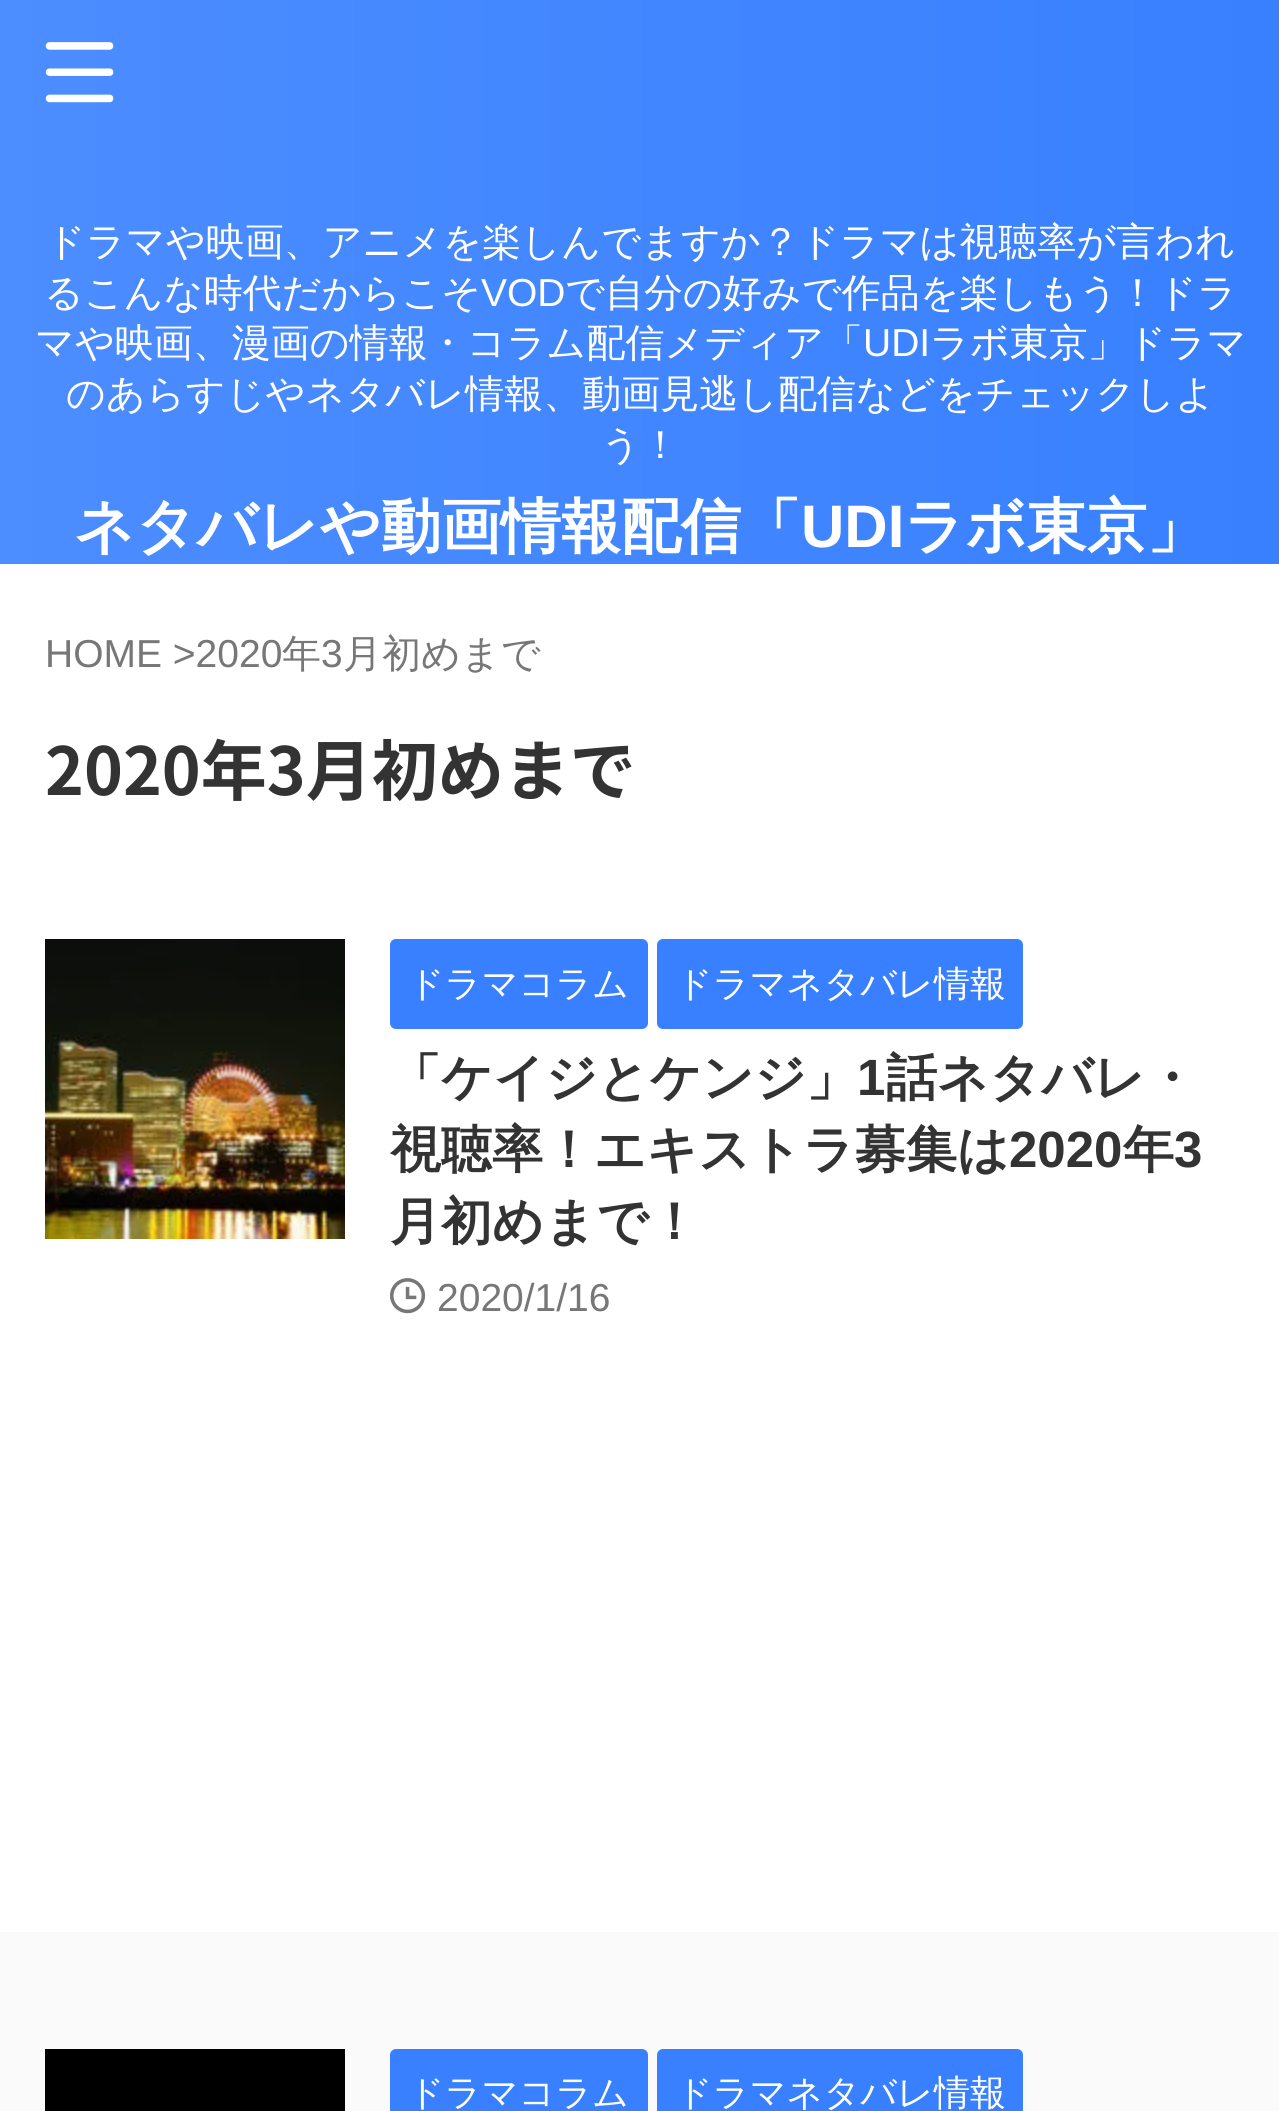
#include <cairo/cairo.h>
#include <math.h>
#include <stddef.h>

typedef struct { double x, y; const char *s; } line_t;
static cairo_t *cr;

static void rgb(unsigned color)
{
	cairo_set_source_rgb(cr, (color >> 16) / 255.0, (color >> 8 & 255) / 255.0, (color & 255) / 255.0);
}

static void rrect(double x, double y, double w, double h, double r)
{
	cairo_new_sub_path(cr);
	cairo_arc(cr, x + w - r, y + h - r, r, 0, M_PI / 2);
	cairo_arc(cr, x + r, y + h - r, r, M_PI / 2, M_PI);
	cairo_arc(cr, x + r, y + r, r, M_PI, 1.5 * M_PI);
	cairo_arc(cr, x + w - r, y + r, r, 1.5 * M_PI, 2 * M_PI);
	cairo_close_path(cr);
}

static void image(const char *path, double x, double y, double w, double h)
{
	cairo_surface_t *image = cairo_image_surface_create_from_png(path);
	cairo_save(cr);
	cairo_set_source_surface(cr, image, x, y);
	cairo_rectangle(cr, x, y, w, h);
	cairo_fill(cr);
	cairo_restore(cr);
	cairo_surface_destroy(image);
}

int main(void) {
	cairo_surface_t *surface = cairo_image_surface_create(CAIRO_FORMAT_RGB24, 1279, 2111);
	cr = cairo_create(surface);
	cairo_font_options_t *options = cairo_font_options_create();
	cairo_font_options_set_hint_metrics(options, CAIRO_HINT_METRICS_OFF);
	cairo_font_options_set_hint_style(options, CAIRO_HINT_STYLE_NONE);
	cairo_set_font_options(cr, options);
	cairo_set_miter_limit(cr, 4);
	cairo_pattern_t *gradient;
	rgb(0xfafafa);
	cairo_paint(cr);
	gradient = cairo_pattern_create_linear(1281, 282, 0, 282);
	cairo_pattern_add_color_stop_rgba(gradient, 0, 0.22, 0.502, 1, 1);
	cairo_pattern_add_color_stop_rgba(gradient, 1, 0.298, 0.553, 1, 1);
	cairo_set_source(cr, gradient);
	cairo_pattern_destroy(gradient);
	cairo_rectangle(cr, 0, 0, 1279, 564);
	cairo_fill(cr);
	image("img/1.png", 45, 42, 69, 61);
	rgb(0xffffff);
	cairo_rectangle(cr, 0, 564, 1279, 1368);
	cairo_fill(cr);
	image("img/2.png", 45, 939, 300, 300);
	rgb(0x3880ff);
	rrect(390, 939, 258, 90, 6);
	cairo_fill(cr);
	rrect(657, 939, 366, 90, 6);
	cairo_fill(cr);
	image("img/3.png", 390, 1278, 36, 36);
	rgb(0x000000);
	cairo_rectangle(cr, 45, 2049, 300, 62);
	cairo_fill(cr);
	rgb(0x3880ff);
	rrect(390, 2049, 258, 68, 6);
	cairo_fill(cr);
	rrect(657, 2049, 366, 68, 6);
	cairo_fill(cr);
	cairo_select_font_face(cr, "WenQuanYi Zen Hei Medium", CAIRO_FONT_SLANT_NORMAL, CAIRO_FONT_WEIGHT_NORMAL);
	cairo_set_font_size(cr, 39);
	rgb(0xffffff);
	cairo_move_to(cr, 46, 255);
	cairo_show_text(cr, "ドラマや映画、アニメを楽しんでますか？ドラマは視聴率が言われ");
	cairo_move_to(cr, 44, 306);
	cairo_show_text(cr, "るこんな時代だからこそ");
	cairo_select_font_face(cr, "Liberation Sans", CAIRO_FONT_SLANT_NORMAL, CAIRO_FONT_WEIGHT_NORMAL);
	cairo_move_to(cr, 481, 306);
	cairo_show_text(cr, "VOD");
	cairo_select_font_face(cr, "WenQuanYi Zen Hei Medium", CAIRO_FONT_SLANT_NORMAL, CAIRO_FONT_WEIGHT_NORMAL);
	cairo_move_to(cr, 565, 306);
	cairo_show_text(cr, "で自分の好みで作品を楽しもう！ドラ");
	cairo_move_to(cr, 35, 356);
	cairo_show_text(cr, "マや映画、漫画の情報・コラム配信メディア「");
	cairo_select_font_face(cr, "Liberation Sans", CAIRO_FONT_SLANT_NORMAL, CAIRO_FONT_WEIGHT_NORMAL);
	cairo_move_to(cr, 863, 356);
	cairo_show_text(cr, "UDI");
	cairo_select_font_face(cr, "WenQuanYi Zen Hei Medium", CAIRO_FONT_SLANT_NORMAL, CAIRO_FONT_WEIGHT_NORMAL);
	{
		static const line_t items[] = {
			{930, 356, "ラボ東京」ドラマ"},
			{66, 407, "のあらすじやネタバレ情報、動画見逃し配信などをチェックしよ"},
			{601, 458, "う！"},
		};
		for (size_t i = 0; i < sizeof items / sizeof *items; i++) {
			cairo_move_to(cr, items[i].x, items[i].y);
			cairo_show_text(cr, items[i].s);
		}
	}
	cairo_select_font_face(cr, "WenQuanYi Zen Hei", CAIRO_FONT_SLANT_NORMAL, CAIRO_FONT_WEIGHT_BOLD);
	cairo_set_font_size(cr, 60);
	cairo_move_to(cr, 74, 547);
	cairo_show_text(cr, "ネタバレや動画情報配信「");
	cairo_select_font_face(cr, "Liberation Sans", CAIRO_FONT_SLANT_NORMAL, CAIRO_FONT_WEIGHT_BOLD);
	cairo_move_to(cr, 801, 547);
	cairo_show_text(cr, "UDI");
	cairo_select_font_face(cr, "WenQuanYi Zen Hei", CAIRO_FONT_SLANT_NORMAL, CAIRO_FONT_WEIGHT_BOLD);
	cairo_move_to(cr, 904, 547);
	cairo_show_text(cr, "ラボ東京」");
	cairo_select_font_face(cr, "Liberation Sans", CAIRO_FONT_SLANT_NORMAL, CAIRO_FONT_WEIGHT_NORMAL);
	cairo_set_font_size(cr, 39);
	rgb(0x777777);
	cairo_move_to(cr, 45, 667);
	cairo_show_text(cr, "HOME >2020");
	cairo_select_font_face(cr, "WenQuanYi Zen Hei Medium", CAIRO_FONT_SLANT_NORMAL, CAIRO_FONT_WEIGHT_NORMAL);
	cairo_move_to(cr, 282, 667);
	cairo_show_text(cr, "年");
	cairo_select_font_face(cr, "Liberation Sans", CAIRO_FONT_SLANT_NORMAL, CAIRO_FONT_WEIGHT_NORMAL);
	cairo_move_to(cr, 321, 667);
	cairo_show_text(cr, "3");
	cairo_select_font_face(cr, "WenQuanYi Zen Hei Medium", CAIRO_FONT_SLANT_NORMAL, CAIRO_FONT_WEIGHT_NORMAL);
	cairo_move_to(cr, 343, 667);
	cairo_show_text(cr, "月初めまで");
	cairo_select_font_face(cr, "Noto Sans JP", CAIRO_FONT_SLANT_NORMAL, CAIRO_FONT_WEIGHT_BOLD);
	cairo_set_font_size(cr, 66);
	rgb(0x333333);
	cairo_move_to(cr, 45, 795);
	cairo_show_text(cr, "2020年3月初めまで");
	cairo_select_font_face(cr, "WenQuanYi Zen Hei Medium", CAIRO_FONT_SLANT_NORMAL, CAIRO_FONT_WEIGHT_NORMAL);
	cairo_set_font_size(cr, 36);
	rgb(0xffffff);
	cairo_move_to(cr, 408, 996);
	cairo_show_text(cr, "ドラマコラム");
	cairo_move_to(cr, 676, 996);
	cairo_show_text(cr, "ドラマネタバレ情報");
	cairo_select_font_face(cr, "WenQuanYi Zen Hei", CAIRO_FONT_SLANT_NORMAL, CAIRO_FONT_WEIGHT_BOLD);
	cairo_set_font_size(cr, 51);
	rgb(0x333333);
	cairo_move_to(cr, 390, 1095);
	cairo_show_text(cr, "「ケイジとケンジ」");
	cairo_select_font_face(cr, "Liberation Sans", CAIRO_FONT_SLANT_NORMAL, CAIRO_FONT_WEIGHT_BOLD);
	cairo_move_to(cr, 857, 1095);
	cairo_show_text(cr, "1");
	cairo_select_font_face(cr, "WenQuanYi Zen Hei", CAIRO_FONT_SLANT_NORMAL, CAIRO_FONT_WEIGHT_BOLD);
	cairo_move_to(cr, 886, 1095);
	cairo_show_text(cr, "話ネタバレ・");
	cairo_move_to(cr, 390, 1167);
	cairo_show_text(cr, "視聴率！エキストラ募集は");
	cairo_select_font_face(cr, "Liberation Sans", CAIRO_FONT_SLANT_NORMAL, CAIRO_FONT_WEIGHT_BOLD);
	cairo_move_to(cr, 1009, 1167);
	cairo_show_text(cr, "2020");
	cairo_select_font_face(cr, "WenQuanYi Zen Hei", CAIRO_FONT_SLANT_NORMAL, CAIRO_FONT_WEIGHT_BOLD);
	cairo_move_to(cr, 1123, 1167);
	cairo_show_text(cr, "年");
	cairo_select_font_face(cr, "Liberation Sans", CAIRO_FONT_SLANT_NORMAL, CAIRO_FONT_WEIGHT_BOLD);
	cairo_move_to(cr, 1174, 1167);
	cairo_show_text(cr, "3");
	cairo_select_font_face(cr, "WenQuanYi Zen Hei", CAIRO_FONT_SLANT_NORMAL, CAIRO_FONT_WEIGHT_BOLD);
	cairo_move_to(cr, 390, 1239);
	cairo_show_text(cr, "月初めまで！");
	cairo_select_font_face(cr, "Liberation Sans", CAIRO_FONT_SLANT_NORMAL, CAIRO_FONT_WEIGHT_NORMAL);
	cairo_set_font_size(cr, 39);
	rgb(0x777777);
	cairo_move_to(cr, 437, 1311);
	cairo_show_text(cr, "2020/1/16");
	cairo_select_font_face(cr, "WenQuanYi Zen Hei Medium", CAIRO_FONT_SLANT_NORMAL, CAIRO_FONT_WEIGHT_NORMAL);
	cairo_set_font_size(cr, 36);
	rgb(0xffffff);
	cairo_move_to(cr, 408, 2105);
	cairo_show_text(cr, "ドラマコラム");
	cairo_move_to(cr, 676, 2105);
	cairo_show_text(cr, "ドラマネタバレ情報");
	cairo_surface_write_to_png(surface, "page.png");
	cairo_font_options_destroy(options);
	cairo_destroy(cr);
	cairo_surface_destroy(surface);
	return 0;
}
